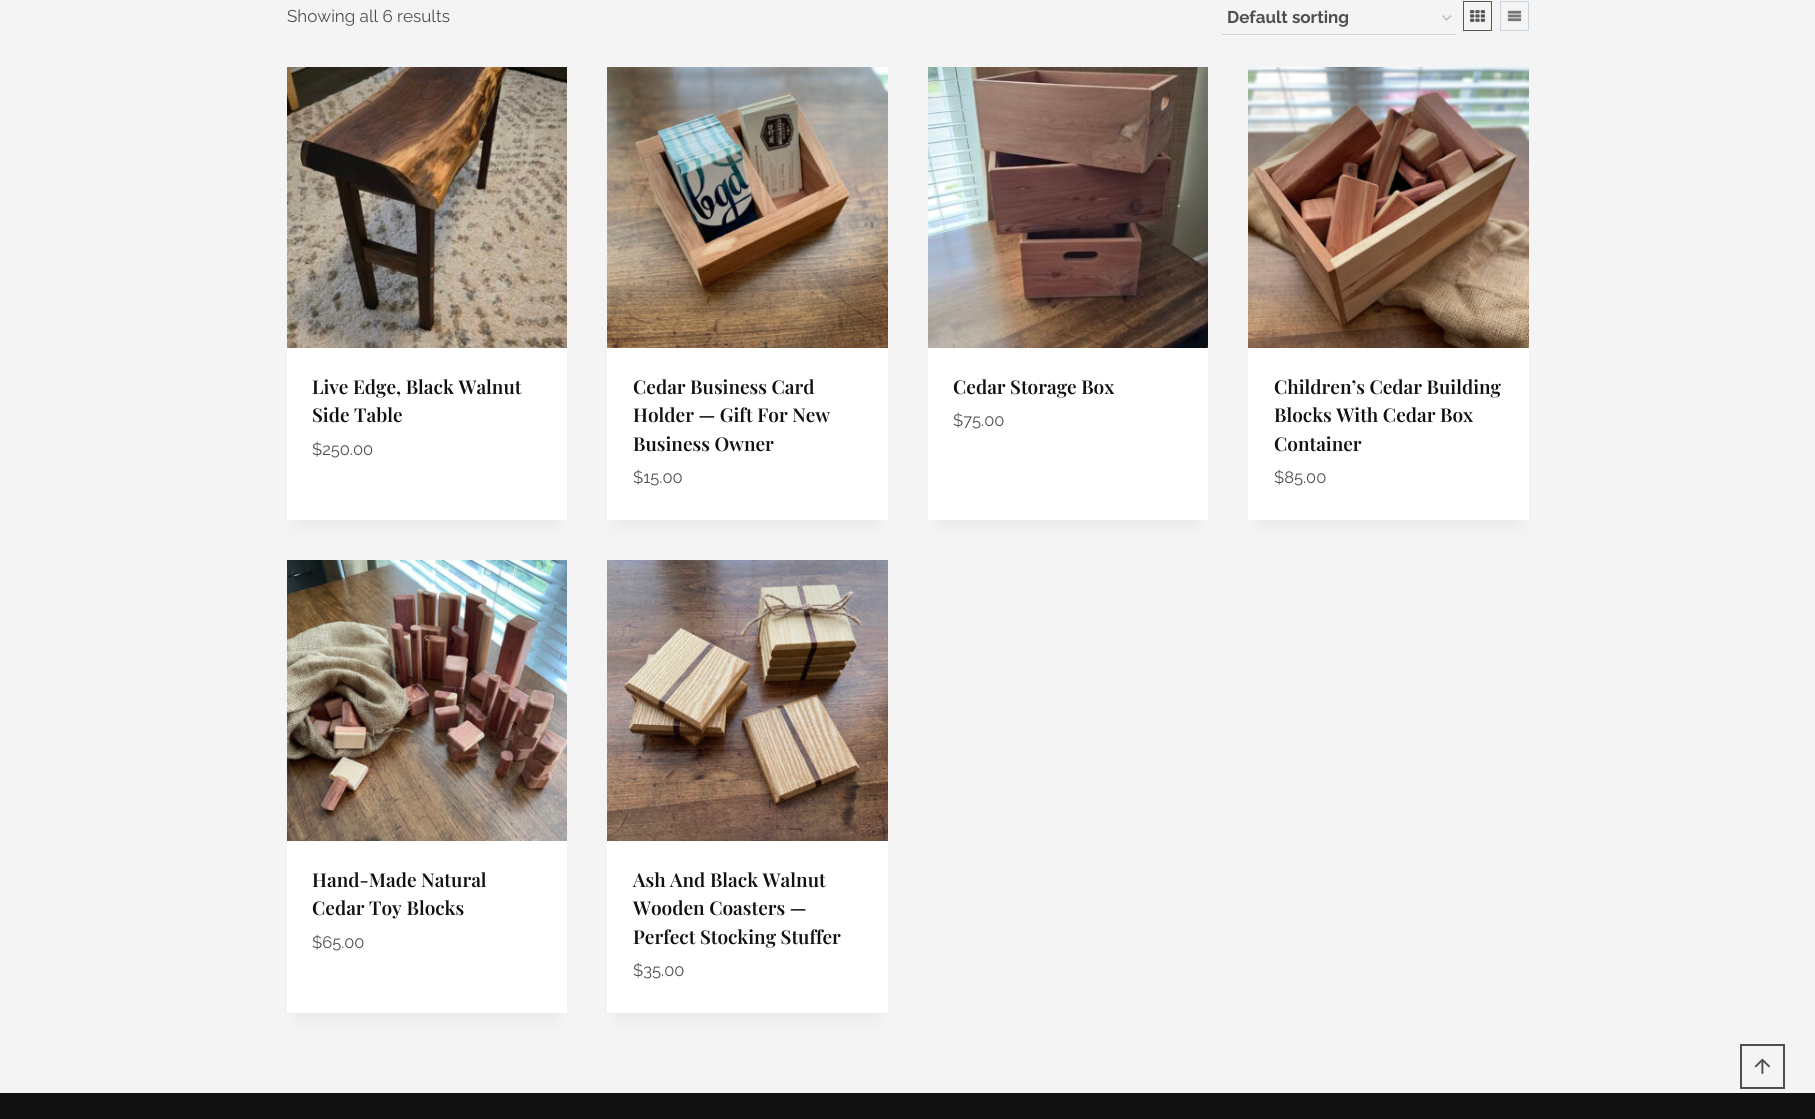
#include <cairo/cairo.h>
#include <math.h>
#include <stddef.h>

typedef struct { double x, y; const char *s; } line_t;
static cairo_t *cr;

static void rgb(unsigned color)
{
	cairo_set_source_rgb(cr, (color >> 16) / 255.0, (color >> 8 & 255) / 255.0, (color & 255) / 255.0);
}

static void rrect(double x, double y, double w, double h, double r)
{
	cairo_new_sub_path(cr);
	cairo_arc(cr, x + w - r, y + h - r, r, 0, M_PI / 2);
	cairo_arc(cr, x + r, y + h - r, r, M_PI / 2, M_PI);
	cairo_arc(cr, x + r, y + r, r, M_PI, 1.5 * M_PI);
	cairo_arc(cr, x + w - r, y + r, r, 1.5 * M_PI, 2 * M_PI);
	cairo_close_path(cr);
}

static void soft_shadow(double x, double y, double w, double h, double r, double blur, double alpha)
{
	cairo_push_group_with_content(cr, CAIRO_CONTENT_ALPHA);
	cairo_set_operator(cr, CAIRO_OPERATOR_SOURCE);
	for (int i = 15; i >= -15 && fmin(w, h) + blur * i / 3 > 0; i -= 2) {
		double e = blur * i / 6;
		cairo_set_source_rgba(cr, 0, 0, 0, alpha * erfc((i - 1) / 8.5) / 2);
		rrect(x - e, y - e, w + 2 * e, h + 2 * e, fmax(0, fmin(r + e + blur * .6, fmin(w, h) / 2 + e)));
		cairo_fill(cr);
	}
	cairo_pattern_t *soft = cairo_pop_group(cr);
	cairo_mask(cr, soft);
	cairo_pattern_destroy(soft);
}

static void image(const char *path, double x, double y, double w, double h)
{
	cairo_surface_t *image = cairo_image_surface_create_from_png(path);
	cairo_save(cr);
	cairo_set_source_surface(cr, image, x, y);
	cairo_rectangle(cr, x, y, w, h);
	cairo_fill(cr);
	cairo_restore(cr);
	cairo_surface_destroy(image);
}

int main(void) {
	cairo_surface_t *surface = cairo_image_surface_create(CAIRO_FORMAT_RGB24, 1815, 1119);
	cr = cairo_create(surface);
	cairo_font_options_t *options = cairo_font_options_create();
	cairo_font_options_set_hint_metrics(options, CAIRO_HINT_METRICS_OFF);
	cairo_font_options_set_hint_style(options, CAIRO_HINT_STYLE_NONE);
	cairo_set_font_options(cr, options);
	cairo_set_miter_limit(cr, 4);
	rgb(0xf4f4f4);
	cairo_paint(cr);
	cairo_new_path(cr);
	cairo_move_to(cr, 1442.5, 15.5);
	cairo_line_to(cr, 1446.5, 20);
	cairo_line_to(cr, 1451, 15.5);
	rgb(0xbbbbbb);
	cairo_set_line_width(cr, 1.4);
	cairo_stroke(cr);
	rgb(0xcbd5e0);
	cairo_rectangle(cr, 1222, 34, 234, 1);
	cairo_fill(cr);
	cairo_rectangle(cr, 1463.5, 1.5, 28, 29);
	rgb(0x555554);
	cairo_set_line_width(cr, 1);
	cairo_stroke(cr);
	image("img/1.png", 1470, 10, 15, 12);
	cairo_rectangle(cr, 1500.5, 1.5, 28, 29);
	rgb(0xcbd5e0);
	cairo_stroke(cr);
	image("img/2.png", 1507, 10, 15, 12);
	rgb(0x000000);
	soft_shadow(297, 92, 260, 433, 0, 7.5, 0.05);
	rgb(0xffffff);
	cairo_rectangle(cr, 287, 348, 280, 172);
	cairo_fill(cr);
	image("img/3.png", 287, 67, 280, 281);
	rgb(0x000000);
	soft_shadow(617, 92, 261, 433, 0, 7.5, 0.05);
	rgb(0xffffff);
	cairo_rectangle(cr, 607, 348, 281, 172);
	cairo_fill(cr);
	image("img/4.png", 607, 67, 281, 281);
	rgb(0x000000);
	soft_shadow(938, 92, 260, 433, 0, 7.5, 0.05);
	rgb(0xffffff);
	cairo_rectangle(cr, 928, 348, 280, 172);
	cairo_fill(cr);
	image("img/5.png", 928, 67, 280, 281);
	rgb(0x000000);
	soft_shadow(1258, 92, 261, 433, 0, 7.5, 0.05);
	rgb(0xffffff);
	cairo_rectangle(cr, 1248, 348, 281, 172);
	cairo_fill(cr);
	image("img/6.png", 1248, 67, 281, 281);
	rgb(0x000000);
	soft_shadow(297, 585, 260, 433, 0, 7.5, 0.05);
	rgb(0xffffff);
	cairo_rectangle(cr, 287, 841, 280, 172);
	cairo_fill(cr);
	image("img/7.png", 287, 560, 280, 281);
	rgb(0x000000);
	soft_shadow(617, 585, 261, 433, 0, 7.5, 0.05);
	rgb(0xffffff);
	cairo_rectangle(cr, 607, 841, 281, 172);
	cairo_fill(cr);
	image("img/8.png", 607, 560, 281, 281);
	rgb(0x111111);
	cairo_rectangle(cr, 0, 1093, 1815, 26);
	cairo_fill(cr);
	cairo_rectangle(cr, 1741, 1045, 43, 43);
	rgb(0x4f4f4f);
	cairo_set_line_width(cr, 2);
	cairo_stroke(cr);
	image("img/9.png", 1754, 1058, 16, 16);
	cairo_select_font_face(cr, "Raleway", CAIRO_FONT_SLANT_NORMAL, CAIRO_FONT_WEIGHT_NORMAL);
	cairo_set_font_size(cr, 17);
	cairo_move_to(cr, 287, 22);
	cairo_show_text(cr, "Showing all 6 results");
	cairo_select_font_face(cr, "Raleway", CAIRO_FONT_SLANT_NORMAL, CAIRO_FONT_WEIGHT_BOLD);
	cairo_move_to(cr, 1227, 23);
	cairo_show_text(cr, "Default sorting");
	cairo_select_font_face(cr, "Playfair Display SemiBold", CAIRO_FONT_SLANT_NORMAL, CAIRO_FONT_WEIGHT_NORMAL);
	cairo_set_font_size(cr, 19);
	rgb(0x111111);
	cairo_move_to(cr, 312, 394);
	cairo_show_text(cr, "Live Edge, Black Walnut");
	cairo_move_to(cr, 312, 422);
	cairo_show_text(cr, "Side Table");
	cairo_select_font_face(cr, "Raleway", CAIRO_FONT_SLANT_NORMAL, CAIRO_FONT_WEIGHT_NORMAL);
	cairo_set_font_size(cr, 16.5);
	rgb(0x4f4f4f);
	cairo_move_to(cr, 312, 455);
	cairo_show_text(cr, "$250.00");
	cairo_select_font_face(cr, "Playfair Display SemiBold", CAIRO_FONT_SLANT_NORMAL, CAIRO_FONT_WEIGHT_NORMAL);
	cairo_set_font_size(cr, 19);
	rgb(0x111111);
	{
		static const line_t items[] = {
			{633, 394, "Cedar Business Card"},
			{633, 422, "Holder — Gift For New"},
			{633, 451, "Business Owner"},
		};
		for (size_t i = 0; i < sizeof items / sizeof *items; i++) {
			cairo_move_to(cr, items[i].x, items[i].y);
			cairo_show_text(cr, items[i].s);
		}
	}
	cairo_select_font_face(cr, "Raleway", CAIRO_FONT_SLANT_NORMAL, CAIRO_FONT_WEIGHT_NORMAL);
	cairo_set_font_size(cr, 16.5);
	rgb(0x4f4f4f);
	cairo_move_to(cr, 633, 483);
	cairo_show_text(cr, "$15.00");
	cairo_select_font_face(cr, "Playfair Display SemiBold", CAIRO_FONT_SLANT_NORMAL, CAIRO_FONT_WEIGHT_NORMAL);
	cairo_set_font_size(cr, 19);
	rgb(0x111111);
	cairo_move_to(cr, 953, 394);
	cairo_show_text(cr, "Cedar Storage Box");
	cairo_select_font_face(cr, "Raleway", CAIRO_FONT_SLANT_NORMAL, CAIRO_FONT_WEIGHT_NORMAL);
	cairo_set_font_size(cr, 16.5);
	rgb(0x4f4f4f);
	cairo_move_to(cr, 953, 426);
	cairo_show_text(cr, "$75.00");
	cairo_select_font_face(cr, "Playfair Display SemiBold", CAIRO_FONT_SLANT_NORMAL, CAIRO_FONT_WEIGHT_NORMAL);
	cairo_set_font_size(cr, 19);
	rgb(0x111111);
	{
		static const line_t items[] = {
			{1274, 394, "Children’s Cedar Building"},
			{1274, 422, "Blocks With Cedar Box"},
			{1274, 451, "Container"},
		};
		for (size_t i = 0; i < sizeof items / sizeof *items; i++) {
			cairo_move_to(cr, items[i].x, items[i].y);
			cairo_show_text(cr, items[i].s);
		}
	}
	cairo_select_font_face(cr, "Raleway", CAIRO_FONT_SLANT_NORMAL, CAIRO_FONT_WEIGHT_NORMAL);
	cairo_set_font_size(cr, 16.5);
	rgb(0x4f4f4f);
	cairo_move_to(cr, 1274, 483);
	cairo_show_text(cr, "$85.00");
	cairo_select_font_face(cr, "Playfair Display SemiBold", CAIRO_FONT_SLANT_NORMAL, CAIRO_FONT_WEIGHT_NORMAL);
	cairo_set_font_size(cr, 19);
	rgb(0x111111);
	cairo_move_to(cr, 312, 887);
	cairo_show_text(cr, "Hand-Made Natural");
	cairo_move_to(cr, 312, 915);
	cairo_show_text(cr, "Cedar Toy Blocks");
	cairo_select_font_face(cr, "Raleway", CAIRO_FONT_SLANT_NORMAL, CAIRO_FONT_WEIGHT_NORMAL);
	cairo_set_font_size(cr, 16.5);
	rgb(0x4f4f4f);
	cairo_move_to(cr, 312, 948);
	cairo_show_text(cr, "$65.00");
	cairo_select_font_face(cr, "Playfair Display SemiBold", CAIRO_FONT_SLANT_NORMAL, CAIRO_FONT_WEIGHT_NORMAL);
	cairo_set_font_size(cr, 19);
	rgb(0x111111);
	{
		static const line_t items[] = {
			{633, 887, "Ash And Black Walnut"},
			{633, 915, "Wooden Coasters —"},
			{633, 944, "Perfect Stocking Stuffer"},
		};
		for (size_t i = 0; i < sizeof items / sizeof *items; i++) {
			cairo_move_to(cr, items[i].x, items[i].y);
			cairo_show_text(cr, items[i].s);
		}
	}
	cairo_select_font_face(cr, "Raleway", CAIRO_FONT_SLANT_NORMAL, CAIRO_FONT_WEIGHT_NORMAL);
	cairo_set_font_size(cr, 16.5);
	rgb(0x4f4f4f);
	cairo_move_to(cr, 633, 976);
	cairo_show_text(cr, "$35.00");
	cairo_surface_write_to_png(surface, "page.png");
	cairo_font_options_destroy(options);
	cairo_destroy(cr);
	cairo_surface_destroy(surface);
	return 0;
}
